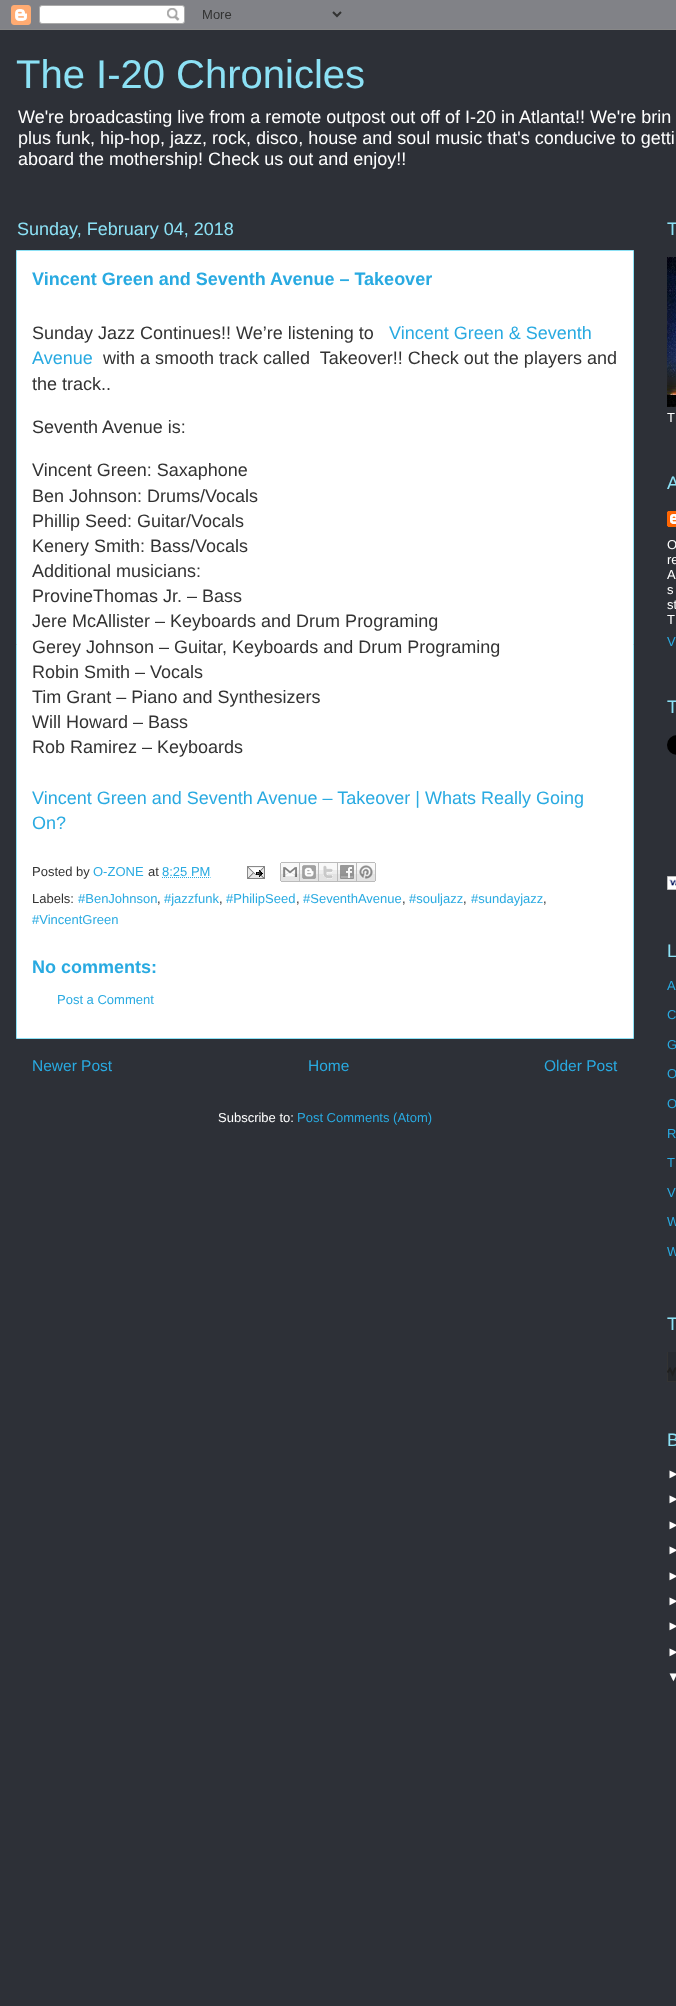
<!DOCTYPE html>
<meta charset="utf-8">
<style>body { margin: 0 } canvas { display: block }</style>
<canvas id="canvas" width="676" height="2006"></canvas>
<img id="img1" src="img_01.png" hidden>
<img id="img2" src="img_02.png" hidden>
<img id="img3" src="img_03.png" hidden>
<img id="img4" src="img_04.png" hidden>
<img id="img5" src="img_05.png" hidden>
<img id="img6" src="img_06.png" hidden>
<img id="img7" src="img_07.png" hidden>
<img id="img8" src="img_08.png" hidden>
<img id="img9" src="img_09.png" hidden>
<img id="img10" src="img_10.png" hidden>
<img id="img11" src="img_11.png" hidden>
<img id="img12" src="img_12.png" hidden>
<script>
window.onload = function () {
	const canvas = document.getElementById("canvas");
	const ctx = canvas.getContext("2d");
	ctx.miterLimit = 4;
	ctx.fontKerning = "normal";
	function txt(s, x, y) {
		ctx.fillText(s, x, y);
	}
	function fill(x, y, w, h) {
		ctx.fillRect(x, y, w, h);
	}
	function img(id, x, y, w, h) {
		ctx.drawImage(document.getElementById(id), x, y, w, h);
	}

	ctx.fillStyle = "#2D3037";
	fill(0, 0, 676, 2006);
	img("img1", 0, 0, 676, 30);
	ctx.fillStyle = "#FFFFFF";
	ctx.beginPath();
	ctx.rect(16.5, 250.5, 617, 788);
	ctx.fill();
	ctx.strokeStyle = "#8CE1F5";
	ctx.stroke();
	ctx.beginPath();
	ctx.moveTo(162, 877.5);
	ctx.lineTo(210.5, 877.5);
	ctx.strokeStyle = "#29AAE1";
	ctx.setLineDash([1, 1]);
	ctx.stroke();
	img("img2", 247, 866, 18, 13);
	img("img3", 280, 862, 20, 20);
	img("img4", 300, 862, 19, 20);
	img("img5", 319, 862, 19, 20);
	img("img6", 338, 862, 19, 20);
	img("img7", 357, 862, 19, 20);
	img("img8", 667, 257, 9, 150);
	img("img9", 667, 511, 9, 16);
	img("img10", 667, 735, 9, 20);
	img("img11", 667, 876, 9, 14);
	img("img12", 667, 1352, 9, 30);
	ctx.font = "40px Liberation Sans";
	ctx.fillStyle = "#8CE1F5";
	txt("The I-20 Chronicles", 16, 88);
	ctx.font = "18px Liberation Sans";
	ctx.fillStyle = "#FFFFFF";
	txt("We're broadcasting live from a remote outpost out off of I-20 in Atlanta!! We're brin", 18, 123);
	txt("plus funk, hip-hop, jazz, rock, disco, house and soul music that's conducive to getti", 18, 144);
	txt("aboard the mothership! Check us out and enjoy!!", 18, 165);
	ctx.fillStyle = "#8CE1F5";
	txt("Sunday, February 04, 2018", 17, 235);
	ctx.font = "bold 18px Liberation Sans";
	ctx.fillStyle = "#29AAE1";
	txt("Vincent Green and Seventh Avenue – Takeover", 32, 285);
	ctx.font = "18px Liberation Sans";
	ctx.fillStyle = "#333333";
	txt("Sunday Jazz Continues!! We’re listening to", 32, 339);
	ctx.fillStyle = "#29AAE1";
	txt("Vincent Green & Seventh", 389, 339);
	txt("Avenue", 32, 364);
	ctx.fillStyle = "#333333";
	txt(" with a smooth track called  Takeover!! Check out the players and", 98, 364);
	txt("the track..", 32, 390);
	txt("Seventh Avenue is:", 32, 433);
	txt("Vincent Green: Saxaphone", 32, 476);
	txt("Ben Johnson: Drums/Vocals", 32, 502);
	txt("Phillip Seed: Guitar/Vocals", 32, 527);
	txt("Kenery Smith: Bass/Vocals", 32, 552);
	txt("Additional musicians:", 32, 577);
	txt("ProvineThomas Jr. – Bass", 32, 602);
	txt("Jere McAllister – Keyboards and Drum Programing", 32, 627);
	txt("Gerey Johnson – Guitar, Keyboards and Drum Programing", 32, 653);
	txt("Robin Smith – Vocals", 32, 678);
	txt("Tim Grant – Piano and Synthesizers", 32, 703);
	txt("Will Howard – Bass", 32, 728);
	txt("Rob Ramirez – Keyboards", 32, 753);
	ctx.fillStyle = "#29AAE1";
	txt("Vincent Green and Seventh Avenue – Takeover | Whats Really Going", 32, 804);
	txt("On?", 32, 829);
	ctx.font = "13px Liberation Sans";
	ctx.fillStyle = "#333333";
	txt("Posted by", 32, 876);
	ctx.fillStyle = "#29AAE1";
	txt("O-ZONE", 93, 876);
	ctx.fillStyle = "#333333";
	txt("at", 148, 876);
	ctx.fillStyle = "#29AAE1";
	txt("8:25 PM", 162, 876);
	ctx.fillStyle = "#333333";
	txt("Labels:", 32, 903);
	ctx.fillStyle = "#29AAE1";
	txt("#BenJohnson", 78, 903);
	ctx.fillStyle = "#333333";
	txt(",", 157, 903);
	ctx.fillStyle = "#29AAE1";
	txt("#jazzfunk", 164, 903);
	ctx.fillStyle = "#333333";
	txt(",", 219, 903);
	ctx.fillStyle = "#29AAE1";
	txt("#PhilipSeed", 226, 903);
	ctx.fillStyle = "#333333";
	txt(",", 296, 903);
	ctx.fillStyle = "#29AAE1";
	txt("#SeventhAvenue", 303, 903);
	ctx.fillStyle = "#333333";
	txt(",", 402, 903);
	ctx.fillStyle = "#29AAE1";
	txt("#souljazz", 409, 903);
	ctx.fillStyle = "#333333";
	txt(",", 463, 903);
	ctx.fillStyle = "#29AAE1";
	txt("#sundayjazz", 471, 903);
	ctx.fillStyle = "#333333";
	txt(",", 543, 903);
	ctx.fillStyle = "#29AAE1";
	txt("#VincentGreen", 32, 924);
	ctx.font = "bold 18px Liberation Sans";
	txt("No comments:", 32, 973);
	ctx.font = "13px Liberation Sans";
	txt("Post a Comment", 57, 1004);
	ctx.font = "15.5px Liberation Sans";
	txt("Newer Post", 32, 1071);
	txt("Home", 308, 1071);
	txt("Older Post", 544, 1071);
	ctx.font = "13px Liberation Sans";
	ctx.fillStyle = "#FFFFFF";
	txt("Subscribe to:", 218, 1122);
	ctx.fillStyle = "#29AAE1";
	txt("Post Comments (Atom)", 297, 1122);
	ctx.font = "18px Liberation Sans";
	ctx.fillStyle = "#8CE1F5";
	txt("T", 667, 235);
	ctx.font = "13px Liberation Sans";
	ctx.fillStyle = "#FFFFFF";
	txt("T", 667, 422);
	ctx.font = "18px Liberation Sans";
	ctx.fillStyle = "#8CE1F5";
	txt("A", 667, 489);
	ctx.font = "13px Liberation Sans";
	ctx.fillStyle = "#FFFFFF";
	txt("O", 667, 549);
	txt("re", 667, 564);
	txt("A", 667, 579);
	txt("s", 667, 594);
	txt("st", 667, 609);
	txt("T", 667, 624);
	ctx.fillStyle = "#29AAE1";
	txt("V", 667, 646);
	ctx.font = "18px Liberation Sans";
	ctx.fillStyle = "#8CE1F5";
	txt("T", 667, 713);
	txt("L", 667, 957);
	ctx.font = "13px Liberation Sans";
	ctx.fillStyle = "#29AAE1";
	txt("A", 667, 990);
	txt("C", 667, 1019);
	txt("G", 667, 1049);
	txt("O", 667, 1078);
	txt("O", 667, 1108);
	txt("R", 667, 1138);
	txt("T", 667, 1167);
	txt("V", 667, 1197);
	txt("W", 667, 1226);
	txt("W", 667, 1256);
	ctx.font = "18px Liberation Sans";
	ctx.fillStyle = "#8CE1F5";
	txt("T", 667, 1330);
	txt("B", 667, 1446);
	ctx.font = "13px Liberation Sans";
	ctx.fillStyle = "#FFFFFF";
	txt("►", 667, 1478);
	txt("►", 667, 1503);
	txt("►", 667, 1529);
	txt("►", 667, 1554);
	txt("►", 667, 1580);
	txt("►", 667, 1605);
	txt("►", 667, 1630);
	txt("►", 667, 1656);
	txt("▼", 667, 1681);
};
</script>
